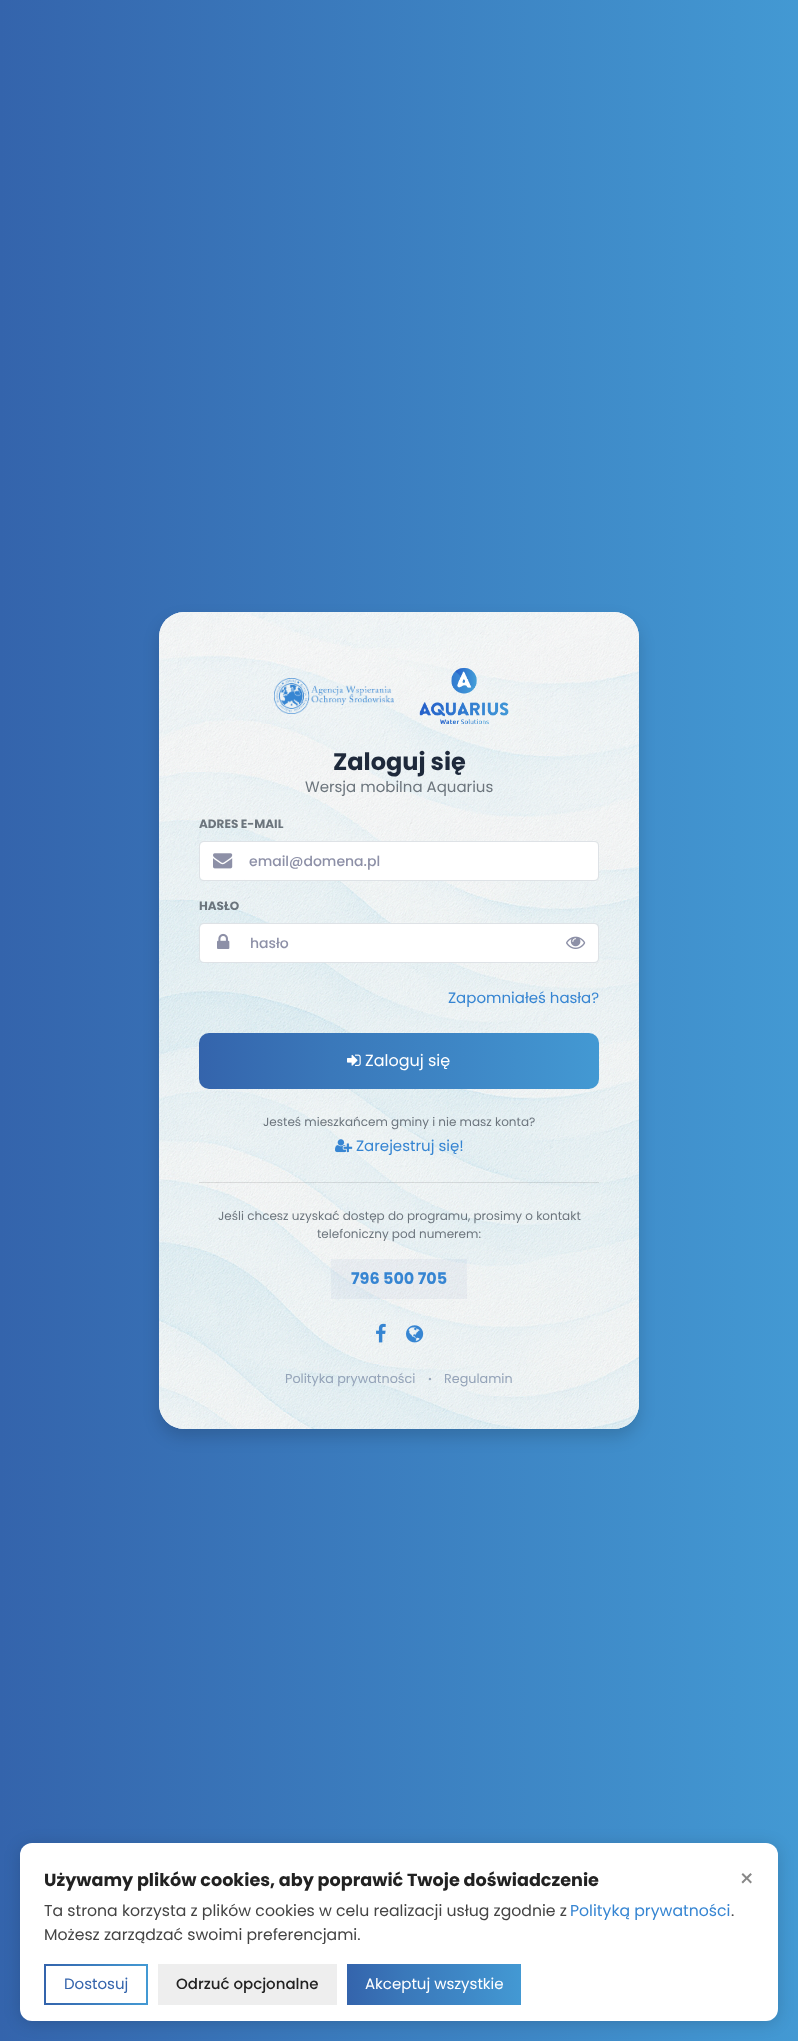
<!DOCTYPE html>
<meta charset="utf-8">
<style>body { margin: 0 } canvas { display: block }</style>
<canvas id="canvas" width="798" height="2041"></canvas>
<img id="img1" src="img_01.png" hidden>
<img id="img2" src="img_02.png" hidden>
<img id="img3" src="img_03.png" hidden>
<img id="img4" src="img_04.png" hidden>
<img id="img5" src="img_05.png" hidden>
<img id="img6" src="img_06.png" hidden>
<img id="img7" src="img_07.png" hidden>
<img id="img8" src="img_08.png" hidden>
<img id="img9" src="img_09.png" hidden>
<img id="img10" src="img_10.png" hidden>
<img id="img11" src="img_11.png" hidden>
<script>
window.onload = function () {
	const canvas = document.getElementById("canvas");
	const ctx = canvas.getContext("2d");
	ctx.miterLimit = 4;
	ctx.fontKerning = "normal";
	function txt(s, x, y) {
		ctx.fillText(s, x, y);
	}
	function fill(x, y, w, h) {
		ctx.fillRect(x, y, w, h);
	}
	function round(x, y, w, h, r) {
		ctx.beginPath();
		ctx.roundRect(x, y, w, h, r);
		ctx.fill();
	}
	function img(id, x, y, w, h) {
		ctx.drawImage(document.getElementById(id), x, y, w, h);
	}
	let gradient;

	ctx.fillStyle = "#FFFFFF";
	fill(0, 0, 798, 2041);
	gradient = ctx.createLinearGradient(0, 1021, 798, 1021);
	gradient.addColorStop(0, "#3464AC");
	gradient.addColorStop(1, "#4399D3");
	ctx.fillStyle = gradient;
	fill(0, 0, 798, 2041);
	ctx.fillStyle = "rgba(0, 0, 0, 0.15)";
	ctx.filter = "blur(8px)";
	ctx.beginPath();
	ctx.roundRect(159, 620, 480, 817, 25);
	ctx.fill();
	ctx.filter = "none";
	ctx.fillStyle = "rgba(255, 255, 255, 0.96)";
	round(159, 612, 480, 817, 25);
	img("img1", 159, 612, 480, 817);
	img("img2", 274, 678, 120, 36);
	img("img3", 419, 668, 90, 56);
	ctx.beginPath();
	ctx.roundRect(199.5, 841.5, 399, 39, 3.5);
	ctx.strokeStyle = "#DEE2E6";
	ctx.stroke();
	ctx.fillStyle = "#FFFFFF";
	ctx.beginPath();
	ctx.roundRect(200.5, 842.5, 44, 37, [3.5, 0, 0, 3.5]);
	ctx.fill();
	ctx.strokeStyle = "#FFFFFF";
	ctx.stroke();
	img("img4", 213, 853, 20, 16);
	ctx.beginPath();
	ctx.roundRect(244.5, 842.5, 353, 37, [0, 3.5, 3.5, 0]);
	ctx.fill();
	ctx.stroke();
	ctx.beginPath();
	ctx.roundRect(199.5, 923.5, 399, 39, 3.5);
	ctx.strokeStyle = "#DEE2E6";
	ctx.stroke();
	ctx.beginPath();
	ctx.roundRect(200.5, 924.5, 45, 37, [3.5, 0, 0, 3.5]);
	ctx.fill();
	ctx.strokeStyle = "#FFFFFF";
	ctx.stroke();
	img("img5", 217, 933, 13, 16);
	ctx.beginPath();
	ctx.roundRect(553.5, 924.5, 44, 37, [0, 3.5, 3.5, 0]);
	ctx.fill();
	ctx.stroke();
	ctx.beginPath();
	ctx.rect(245.5, 924.5, 308, 37);
	ctx.fill();
	ctx.stroke();
	img("img6", 566, 936, 20, 13);
	gradient = ctx.createLinearGradient(199, 1061, 599, 1061);
	gradient.addColorStop(0, "#3464AC");
	gradient.addColorStop(0.33, "#3A78BA");
	gradient.addColorStop(0.66, "#3E87C6");
	gradient.addColorStop(1, "#4399D3");
	ctx.fillStyle = gradient;
	round(199, 1033, 400, 56, 10);
	img("img7", 347, 1054, 14, 12);
	img("img8", 335, 1139, 18, 14);
	ctx.fillStyle = "rgba(0, 0, 0, 0.1)";
	fill(199, 1182, 400, 1);
	ctx.fillStyle = "rgba(52, 100, 172, 0.05)";
	fill(331, 1259, 136, 40);
	img("img9", 376, 1323, 10, 20);
	img("img10", 406, 1325, 18, 18);
	ctx.fillStyle = "rgba(0, 0, 0, 0.15)";
	ctx.filter = "blur(8px)";
	ctx.beginPath();
	ctx.roundRect(20, 1845, 758, 178, 12);
	ctx.fill();
	ctx.filter = "none";
	ctx.fillStyle = "#FFFFFF";
	round(20, 1843, 758, 178, 12);
	img("img11", 44, 1964, 104, 41);
	ctx.fillStyle = "#EEEEEE";
	fill(158, 1964, 179, 41);
	gradient = ctx.createLinearGradient(347, 1985, 521, 1985);
	gradient.addColorStop(0, "#3464AC");
	gradient.addColorStop(0.33, "#3A78BA");
	gradient.addColorStop(0.66, "#3E87C6");
	gradient.addColorStop(1, "#4399D3");
	ctx.fillStyle = gradient;
	fill(347, 1964, 174, 41);
	ctx.font = "bold 24px Poppins";
	ctx.fillStyle = "#1E293B";
	txt("Zaloguj się", 333, 770);
	ctx.font = "15px Poppins";
	ctx.fillStyle = "#6C757D";
	txt("Wersja mobilna Aquarius", 305, 792);
	ctx.font = "bold 12px Poppins";
	txt("ADRES E-MAIL", 199, 828);
	ctx.font = "500 14px Poppins";
	ctx.fillStyle = "#8D90A7";
	txt("email@domena.pl", 249, 866);
	ctx.font = "bold 12px Poppins";
	ctx.fillStyle = "#6C757D";
	txt("HASŁO", 199, 910);
	ctx.font = "500 14px Poppins";
	ctx.fillStyle = "#8D90A7";
	txt("hasło", 250, 948);
	ctx.font = "15px Poppins";
	ctx.fillStyle = "#3685D2";
	txt("Zapomniałeś hasła?", 448, 1003);
	ctx.font = "16px Poppins";
	ctx.fillStyle = "#FFFFFF";
	txt("Zaloguj się", 365, 1066);
	ctx.font = "12px Poppins";
	ctx.fillStyle = "#6C757D";
	txt("Jesteś mieszkańcem gminy i nie masz konta?", 263, 1126);
	ctx.font = "15px Poppins";
	ctx.fillStyle = "#3685D2";
	txt("Zarejestruj się!", 356, 1151);
	ctx.font = "12px Poppins";
	ctx.fillStyle = "#6C757D";
	txt("Jeśli chcesz uzyskać dostęp do programu, prosimy o kontakt", 218, 1220);
	txt("telefoniczny pod numerem:", 317, 1238);
	ctx.font = "bold 16px Poppins";
	ctx.fillStyle = "#3685D2";
	txt("796 500 705", 351, 1284);
	ctx.font = "12.75px Poppins";
	ctx.fillStyle = "#94A3B8";
	txt("Polityka prywatności", 285, 1383);
	ctx.font = "bold 12.75px Poppins";
	txt("·", 428, 1383);
	ctx.font = "12.75px Poppins";
	txt("Regulamin", 444, 1383);
	ctx.font = "bold 17.6px Poppins";
	ctx.fillStyle = "#222222";
	txt("Używamy plików cookies, aby poprawić Twoje doświadczenie", 44, 1886);
	ctx.font = "15.7px Poppins";
	ctx.fillStyle = "#444444";
	txt("Ta strona korzysta z plików cookies w celu realizacji usług zgodnie z", 44, 1916);
	ctx.fillStyle = "#3685D2";
	txt("Polityką prywatności", 570, 1916);
	ctx.fillStyle = "#444444";
	txt(".", 731, 1916);
	txt("Możesz zarządzać swoimi preferencjami.", 44, 1940);
	ctx.font = "24px Poppins";
	ctx.fillStyle = "#888888";
	txt("×", 739, 1887);
	ctx.font = "15px Poppins";
	ctx.fillStyle = "#3464AC";
	txt("Dostosuj", 64, 1989);
	ctx.font = "500 15px Poppins";
	ctx.fillStyle = "#222222";
	txt("Odrzuć opcjonalne", 176, 1989);
	ctx.font = "15px Poppins";
	ctx.fillStyle = "#FFFFFF";
	txt("Akceptuj wszystkie", 365, 1989);
};
</script>
